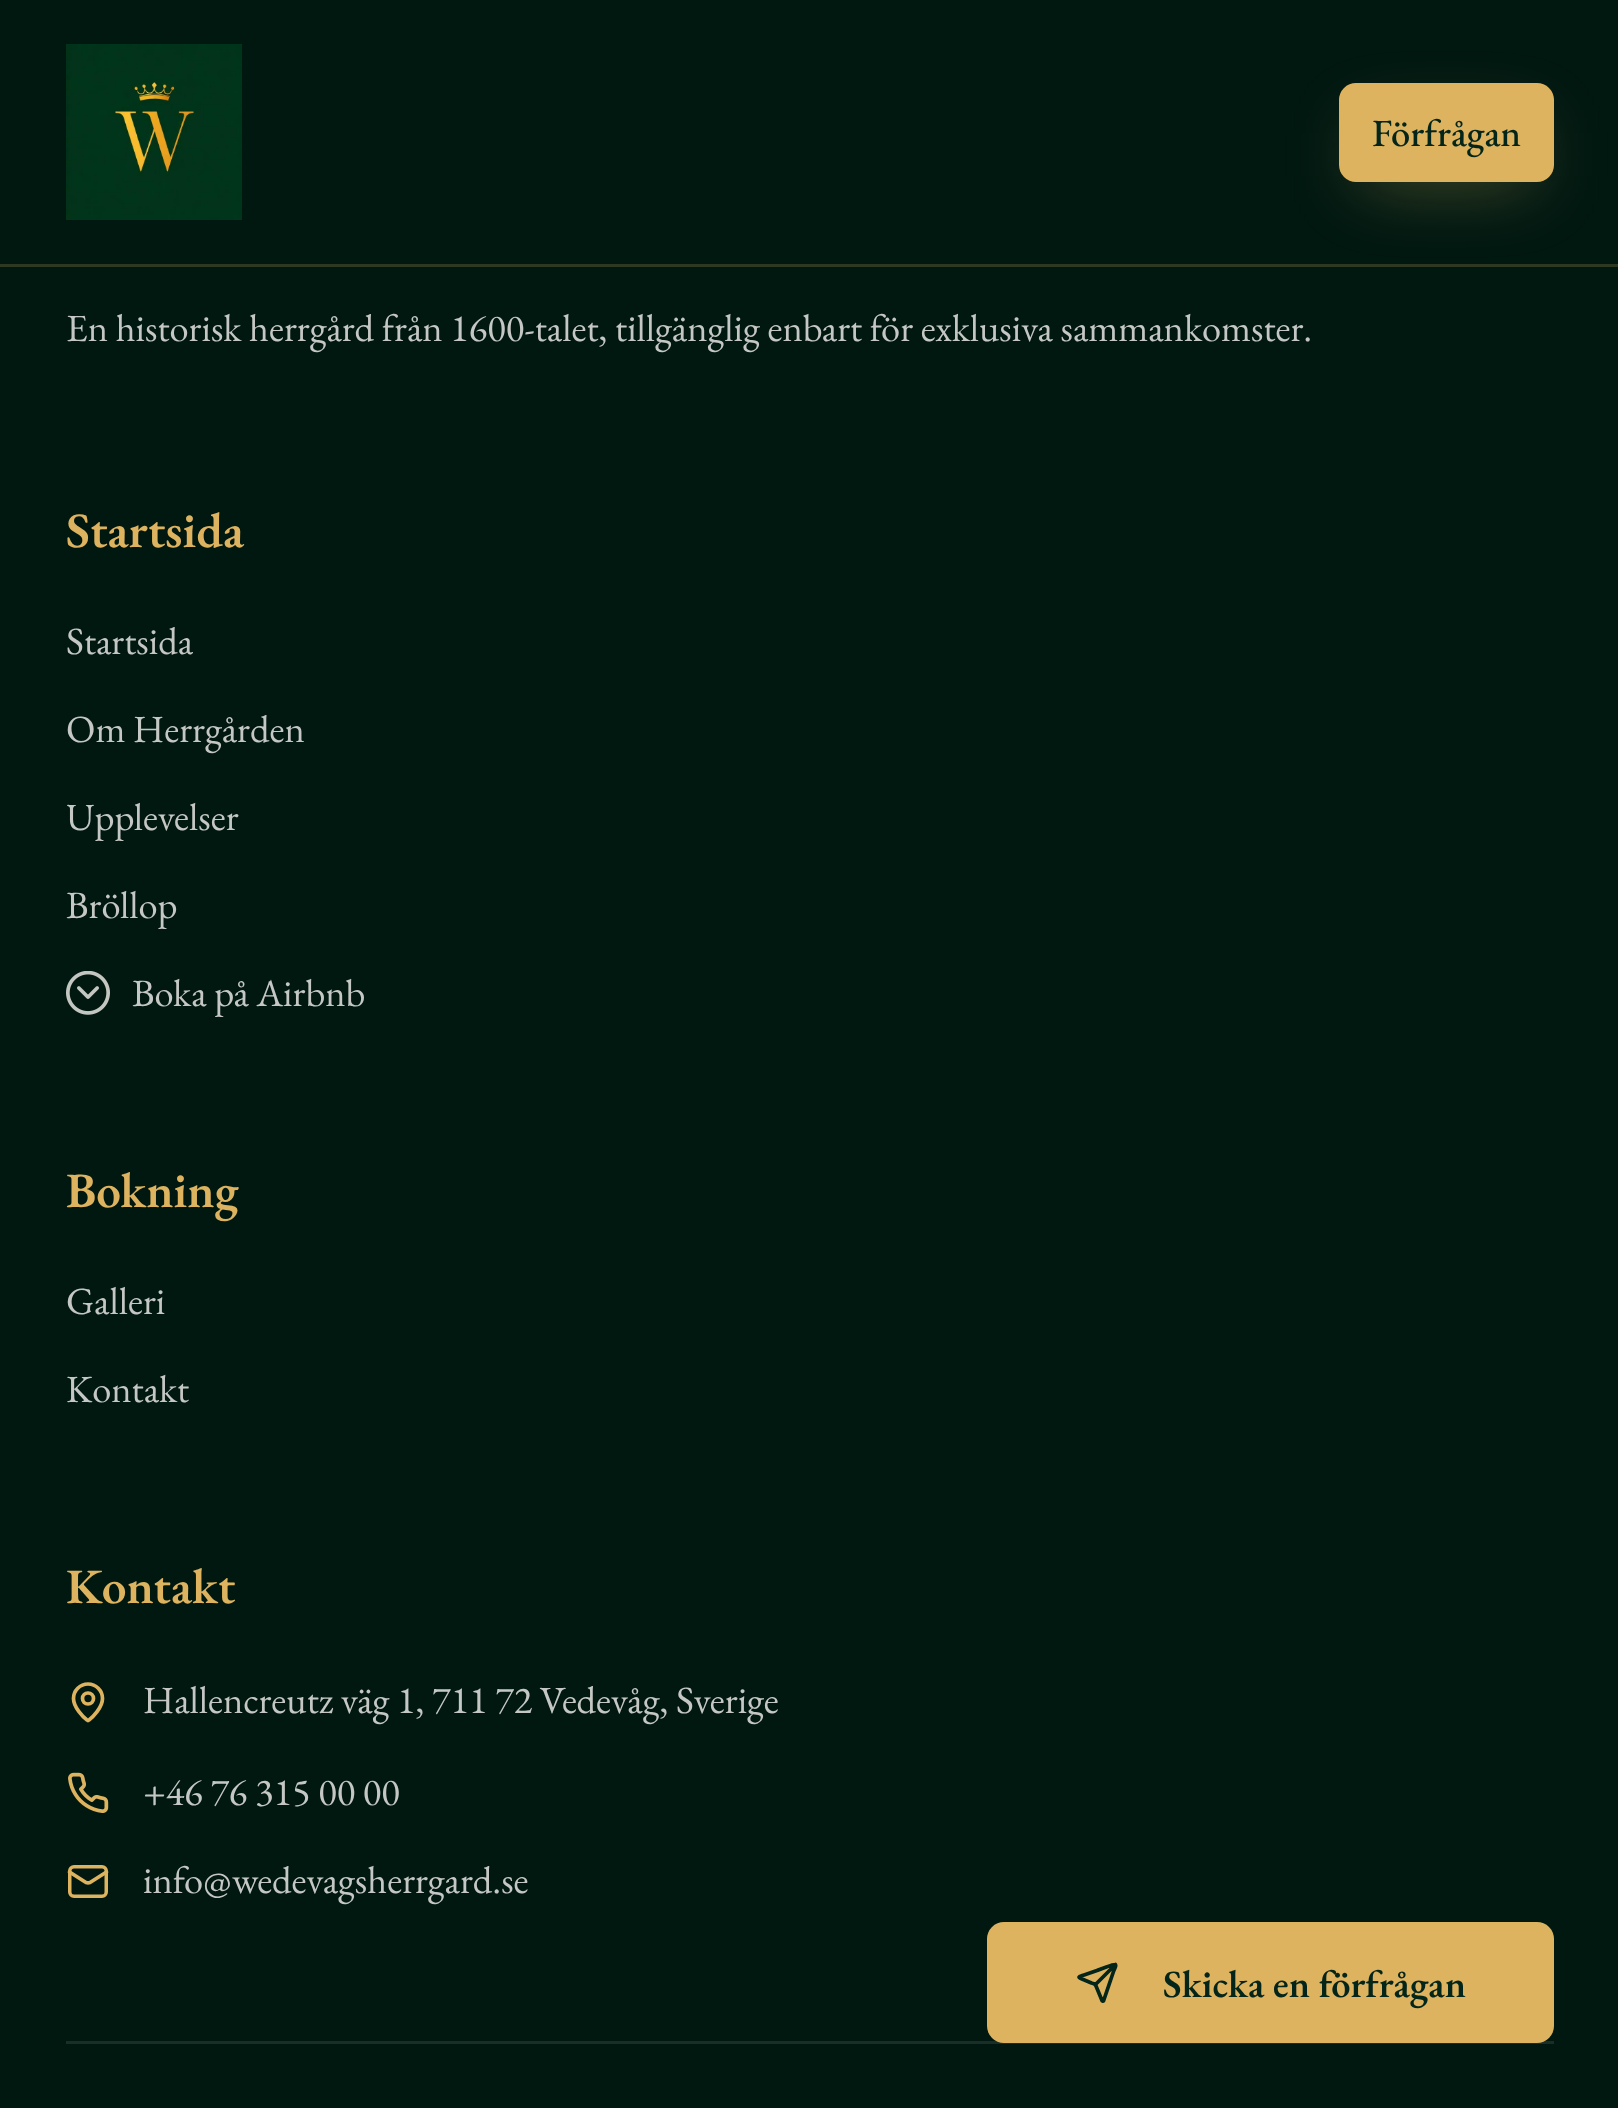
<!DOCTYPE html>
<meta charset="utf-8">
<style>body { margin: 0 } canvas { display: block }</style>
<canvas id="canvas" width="1618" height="2108"></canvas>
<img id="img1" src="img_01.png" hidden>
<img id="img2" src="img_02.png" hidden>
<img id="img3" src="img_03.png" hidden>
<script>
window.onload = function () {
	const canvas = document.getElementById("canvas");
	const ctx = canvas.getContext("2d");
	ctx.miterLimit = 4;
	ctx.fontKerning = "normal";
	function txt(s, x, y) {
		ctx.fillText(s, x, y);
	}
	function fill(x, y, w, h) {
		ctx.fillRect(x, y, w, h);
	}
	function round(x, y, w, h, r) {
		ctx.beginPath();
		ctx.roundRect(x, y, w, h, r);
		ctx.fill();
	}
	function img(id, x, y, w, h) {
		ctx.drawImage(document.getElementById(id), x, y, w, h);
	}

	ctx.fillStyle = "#011811";
	fill(0, 0, 1618, 2108);
	ctx.fillStyle = "#2D3721";
	fill(0, 264, 1618, 3);
	img("img1", 66, 44, 176, 176);
	ctx.fillStyle = "rgba(221, 179, 95, 0.35)";
	ctx.filter = "blur(34.5px)";
	ctx.beginPath();
	ctx.rect(1361, 127, 171, 55);
	ctx.fill();
	ctx.filter = "none";
	ctx.fillStyle = "#DDB35F";
	round(1339, 83, 215, 99, 17);
	img("img2", 66, 971, 44, 44);
	ctx.beginPath();
	ctx.moveTo(102.5, 1698.5);
	ctx.bezierCurveTo(102.5, 1707.5, 92.5, 1717.5, 89, 1720);
	ctx.bezierCurveTo(88.5, 1720.5, 87.5, 1720.5, 87, 1720);
	ctx.bezierCurveTo(83.5, 1717.5, 73.5, 1707.5, 73.5, 1698.5);
	ctx.bezierCurveTo(73.5, 1690.5, 80, 1684, 88, 1684);
	ctx.bezierCurveTo(96, 1684, 102.5, 1690.5, 102.5, 1698.5);
	ctx.strokeStyle = "#DDB35F";
	ctx.lineWidth = 3.7;
	ctx.lineCap = "round";
	ctx.lineJoin = "round";
	ctx.stroke();
	ctx.beginPath();
	ctx.arc(88, 1698.5, 5.5, 0, Math.PI * 2);
	ctx.stroke();
	img("img3", 68, 1772, 41, 41);
	ctx.beginPath();
	ctx.roundRect(69.75, 1866.75, 36.5, 29.5, 4.25);
	ctx.lineWidth = 3.5;
	ctx.lineJoin = "miter";
	ctx.stroke();
	ctx.beginPath();
	ctx.moveTo(106.5, 1872);
	ctx.lineTo(90, 1882.5);
	ctx.bezierCurveTo(88.5, 1883, 87.5, 1883, 86, 1882.5);
	ctx.lineTo(69.5, 1872);
	ctx.lineWidth = 3.7;
	ctx.lineJoin = "round";
	ctx.stroke();
	ctx.fillStyle = "#192E27";
	fill(66, 2041, 1488, 3);
	ctx.fillStyle = "#DDB35F";
	round(987, 1922, 567, 121, 17);
	ctx.beginPath();
	ctx.moveTo(1102, 2000.5);
	ctx.bezierCurveTo(1102, 2001, 1103, 2001.5, 1103.5, 2001);
	ctx.lineTo(1113.5, 1971.5);
	ctx.bezierCurveTo(1114, 1970, 1117, 1965, 1115, 1964.5);
	ctx.bezierCurveTo(1114, 1964, 1099, 1969.5, 1097, 1970.5);
	ctx.lineTo(1085.5, 1974.5);
	ctx.bezierCurveTo(1080, 1976.5, 1076, 1976.5, 1082, 1979);
	ctx.lineTo(1091.5, 1983);
	ctx.bezierCurveTo(1093.5, 1983.5, 1095.5, 1984, 1096, 1986);
	ctx.closePath();
	ctx.moveTo(1115.5, 1964.5);
	ctx.lineTo(1095.5, 1984.5);
	ctx.strokeStyle = "#04251A";
	ctx.stroke();
	ctx.font = "500 38.5px EB Garamond";
	ctx.fillStyle = "#04251A";
	txt("Förfrågan", 1372, 146);
	ctx.font = "38.5px EB Garamond";
	ctx.fillStyle = "#C4C7C3";
	txt("En historisk herrgård från 1600-talet, tillgänglig enbart för exklusiva sammankomster.", 66, 341);
	ctx.font = "600 49.5px EB Garamond";
	ctx.fillStyle = "#DDB35F";
	txt("Startsida", 66, 547);
	ctx.font = "38.5px EB Garamond";
	ctx.fillStyle = "#C4C7C3";
	txt("Startsida", 66, 654);
	txt("Om Herrgården", 66, 742);
	txt("Upplevelser", 66, 830);
	txt("Bröllop", 66, 918);
	txt("Boka på Airbnb", 132, 1006);
	ctx.font = "600 49.5px EB Garamond";
	ctx.fillStyle = "#DDB35F";
	txt("Bokning", 66, 1207);
	ctx.font = "38.5px EB Garamond";
	ctx.fillStyle = "#C4C7C3";
	txt("Galleri", 66, 1314);
	txt("Kontakt", 66, 1402);
	ctx.font = "600 49.5px EB Garamond";
	ctx.fillStyle = "#DDB35F";
	txt("Kontakt", 66, 1603);
	ctx.font = "38.5px EB Garamond";
	ctx.fillStyle = "#C4C7C3";
	txt("Hallencreutz väg 1, 711 72 Vedevåg, Sverige", 143, 1713);
	txt("+46 76 315 00 00", 143, 1805);
	txt("info@wedevagsherrgard.se", 143, 1893);
	ctx.font = "600 38.5px EB Garamond";
	ctx.fillStyle = "#04251A";
	txt("Skicka en förfrågan", 1163, 1997);
};
</script>
